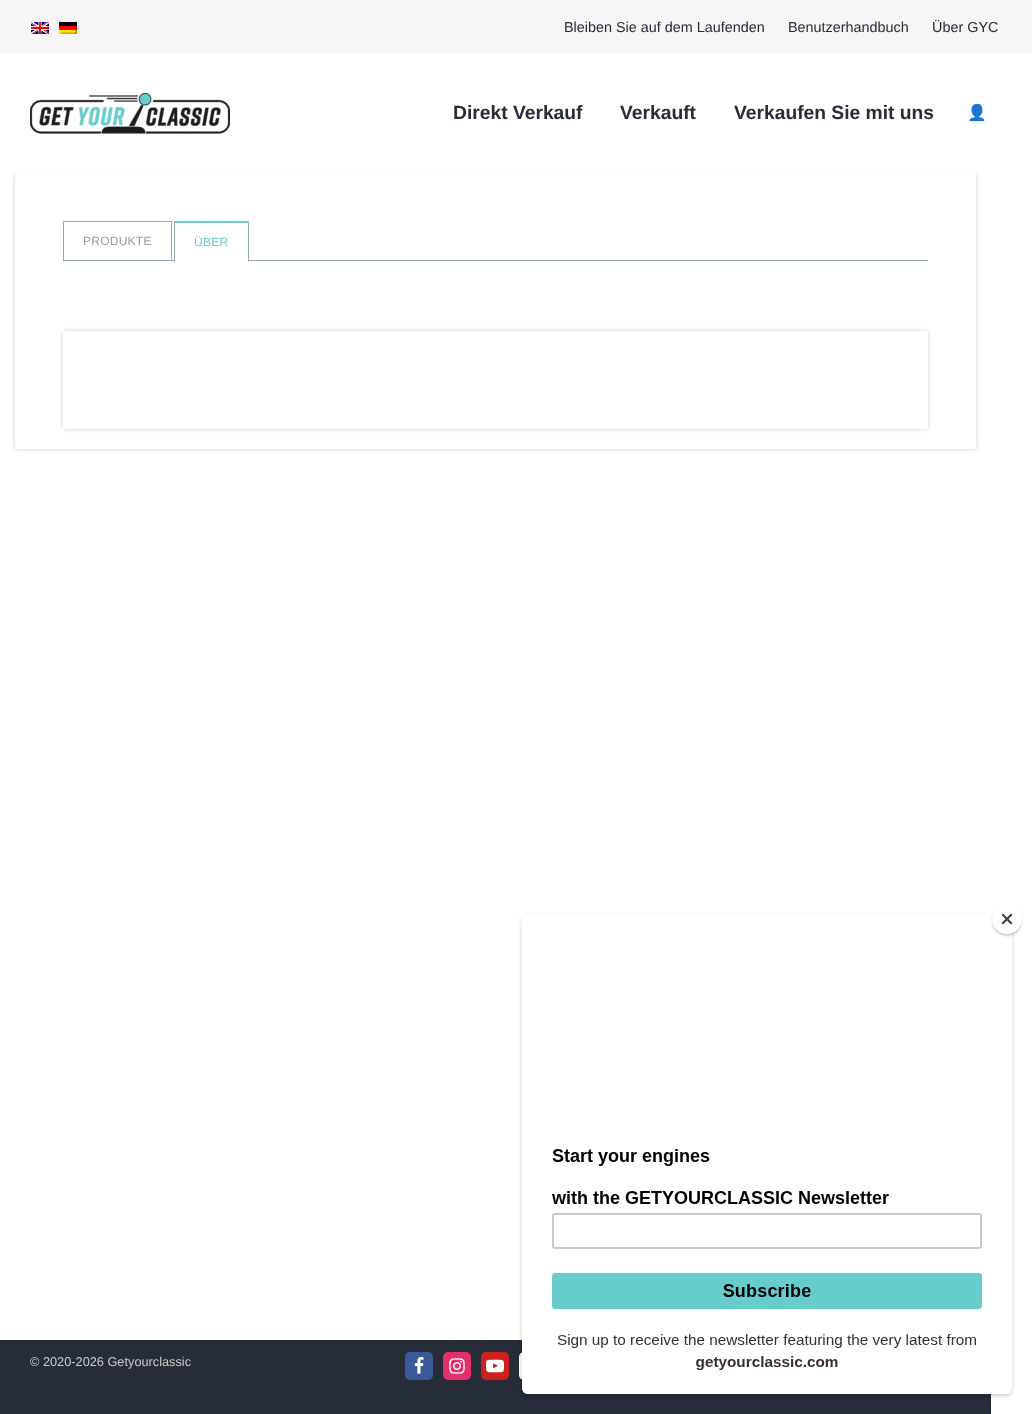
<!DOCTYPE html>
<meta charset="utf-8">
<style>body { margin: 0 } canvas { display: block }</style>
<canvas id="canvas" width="1032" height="1414"></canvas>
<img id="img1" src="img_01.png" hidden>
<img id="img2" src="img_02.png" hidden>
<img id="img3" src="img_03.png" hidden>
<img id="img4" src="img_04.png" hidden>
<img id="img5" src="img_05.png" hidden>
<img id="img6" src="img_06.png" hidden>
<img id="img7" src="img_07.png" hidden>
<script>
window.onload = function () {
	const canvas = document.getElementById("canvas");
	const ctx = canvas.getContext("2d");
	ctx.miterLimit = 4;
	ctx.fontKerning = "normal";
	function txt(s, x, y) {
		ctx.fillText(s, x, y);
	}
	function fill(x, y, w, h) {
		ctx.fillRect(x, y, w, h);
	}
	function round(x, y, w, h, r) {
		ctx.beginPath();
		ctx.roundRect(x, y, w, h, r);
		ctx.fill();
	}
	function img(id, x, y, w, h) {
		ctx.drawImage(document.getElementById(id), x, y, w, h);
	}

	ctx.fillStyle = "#FFFFFF";
	fill(0, 0, 1032, 1414);
	ctx.fillStyle = "#F6F6F6";
	fill(0, 0, 1032, 53);
	img("img1", 31, 22, 18, 12);
	img("img2", 59, 22, 18, 12);
	ctx.save();
	ctx.beginPath();
	ctx.moveTo(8, 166);
	ctx.lineTo(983, 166);
	ctx.lineTo(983, 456);
	ctx.lineTo(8, 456);
	ctx.closePath();
	ctx.moveTo(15, 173);
	ctx.lineTo(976, 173);
	ctx.lineTo(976, 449);
	ctx.lineTo(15, 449);
	ctx.closePath();
	ctx.clip("evenodd");
	ctx.fillStyle = "#CCCCCC";
	ctx.filter = "blur(2px)";
	ctx.beginPath();
	ctx.rect(15, 173, 961, 276);
	ctx.fill();
	ctx.filter = "none";
	ctx.restore();
	ctx.fillStyle = "#FFFFFF";
	fill(13, 170, 965, 3);
	img("img3", 30, 93, 200, 41);
	ctx.fillStyle = "#93A8B3";
	fill(63, 260, 865, 1);
	fill(63, 221, 109, 1);
	ctx.beginPath();
	ctx.moveTo(172, 221);
	ctx.lineTo(172, 261);
	ctx.lineTo(171, 260);
	ctx.lineTo(171, 222);
	ctx.closePath();
	ctx.fill();
	ctx.beginPath();
	ctx.moveTo(63, 261);
	ctx.lineTo(63, 221);
	ctx.lineTo(64, 222);
	ctx.lineTo(64, 260);
	ctx.closePath();
	ctx.fill();
	ctx.fillStyle = "#FFFFFF";
	fill(174, 260, 75, 1);
	ctx.fillStyle = "#66CCCC";
	ctx.beginPath();
	ctx.moveTo(174, 221);
	ctx.lineTo(249, 221);
	ctx.lineTo(248, 223);
	ctx.lineTo(175, 223);
	ctx.closePath();
	ctx.fill();
	ctx.fillStyle = "#93A8B3";
	ctx.beginPath();
	ctx.moveTo(249, 221);
	ctx.lineTo(249, 262);
	ctx.lineTo(248, 261);
	ctx.lineTo(248, 223);
	ctx.closePath();
	ctx.fill();
	ctx.beginPath();
	ctx.moveTo(174, 262);
	ctx.lineTo(174, 221);
	ctx.lineTo(175, 223);
	ctx.lineTo(175, 261);
	ctx.closePath();
	ctx.fill();
	ctx.save();
	ctx.beginPath();
	ctx.moveTo(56, 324);
	ctx.lineTo(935, 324);
	ctx.lineTo(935, 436);
	ctx.lineTo(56, 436);
	ctx.closePath();
	ctx.moveTo(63, 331);
	ctx.lineTo(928, 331);
	ctx.lineTo(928, 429);
	ctx.lineTo(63, 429);
	ctx.closePath();
	ctx.clip("evenodd");
	ctx.fillStyle = "#CCCCCC";
	ctx.filter = "blur(2px)";
	ctx.beginPath();
	ctx.rect(63, 331, 865, 98);
	ctx.fill();
	ctx.filter = "none";
	ctx.restore();
	ctx.fillStyle = "#262C38";
	fill(0, 1340, 991, 74);
	ctx.fillStyle = "#3B5998";
	round(405, 1352, 28, 28, 5);
	img("img4", 414, 1357, 10, 17);
	ctx.fillStyle = "#E1306C";
	round(443, 1352, 28, 28, 5);
	img("img5", 449, 1358, 16, 16);
	ctx.fillStyle = "#CD201F";
	round(481, 1352, 28, 28, 5);
	img("img6", 486, 1359, 18, 14);
	ctx.fillStyle = "#FFFFFF";
	round(519, 1352, 28, 28, 5);
	ctx.fillStyle = "rgba(0, 0, 0, 0.2)";
	ctx.filter = "blur(2px)";
	ctx.beginPath();
	ctx.roundRect(522, 916, 490, 480, 6);
	ctx.fill();
	ctx.filter = "none";
	ctx.fillStyle = "#FFFFFF";
	round(522, 914, 490, 480, 6);
	ctx.fillStyle = "rgba(0, 0, 0, 0.2)";
	ctx.filter = "blur(1px)";
	ctx.beginPath();
	ctx.roundRect(992, 906, 30, 30, 15);
	ctx.fill();
	ctx.filter = "none";
	ctx.fillStyle = "#FFFFFF";
	ctx.beginPath();
	ctx.arc(1007, 919, 15, 0, Math.PI * 2);
	ctx.fill();
	ctx.fillStyle = "#414141";
	ctx.beginPath();
	ctx.moveTo(1011, 913.5);
	ctx.lineTo(1012.5, 915);
	ctx.lineTo(1003, 924.5);
	ctx.lineTo(1001.5, 923);
	ctx.closePath();
	ctx.fill();
	ctx.beginPath();
	ctx.moveTo(1001.5, 915);
	ctx.lineTo(1003, 913.5);
	ctx.lineTo(1012.5, 923);
	ctx.lineTo(1011, 924.5);
	ctx.closePath();
	ctx.fill();
	img("img7", 522, 1149, 487, 245);
	ctx.font = "14.4px Liberation Sans";
	ctx.fillStyle = "#262C38";
	txt("Bleiben Sie auf dem Laufenden", 564, 32);
	txt("Benutzerhandbuch", 788, 32);
	txt("Über GYC", 932, 32);
	ctx.font = "bold 19.25px Liberation Sans";
	txt("Direkt Verkauf", 453, 119);
	txt("Verkauft", 620, 119);
	txt("Verkaufen Sie mit uns", 734, 119);
	ctx.font = "bold 16px Noto Color Emoji";
	txt("👤", 967, 118);
	ctx.letterSpacing = "0.25px";
	ctx.font = "12px Liberation Sans";
	ctx.fillStyle = "#999999";
	txt("PRODUKTE", 83, 245);
	ctx.fillStyle = "#66CCCC";
	txt("ÜBER", 194, 246);
	ctx.letterSpacing = "0px";
	ctx.font = "12.75px Liberation Sans";
	ctx.fillStyle = "#CDCDCD";
	txt("© 2020-2026 Getyourclassic", 30, 1366);
};
</script>
